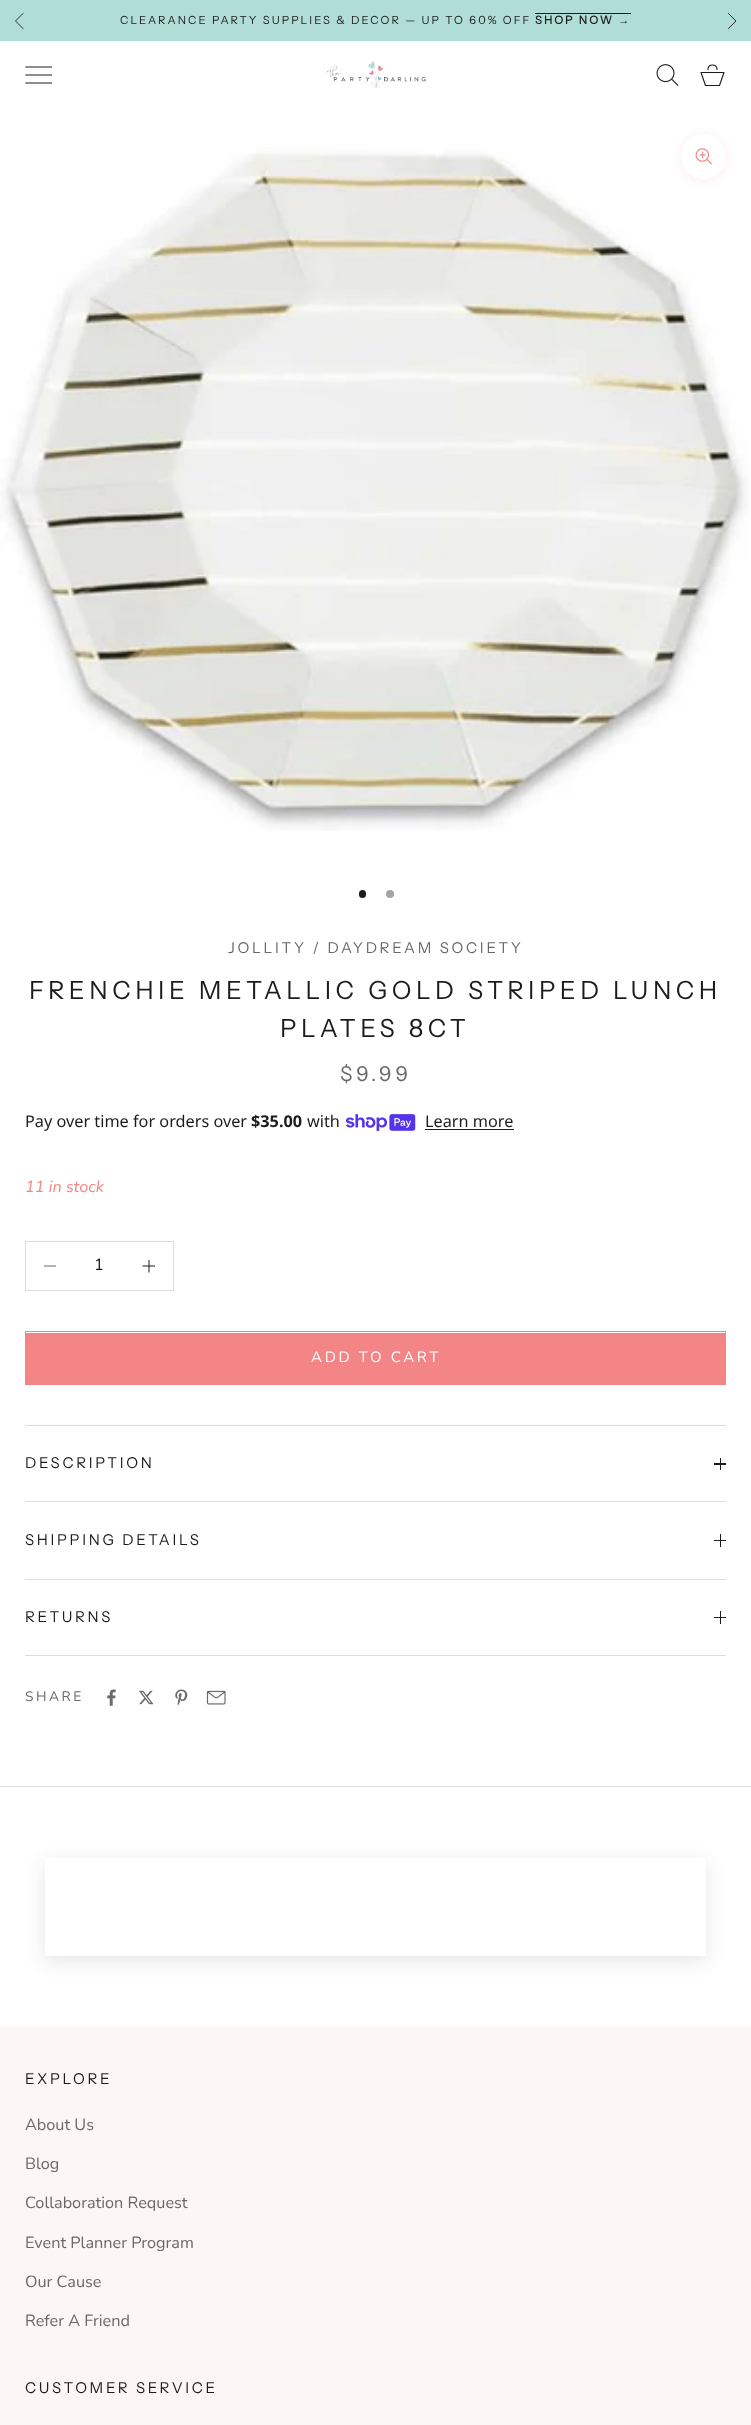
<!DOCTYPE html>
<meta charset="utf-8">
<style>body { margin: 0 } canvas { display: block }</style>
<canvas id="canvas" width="751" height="2425"></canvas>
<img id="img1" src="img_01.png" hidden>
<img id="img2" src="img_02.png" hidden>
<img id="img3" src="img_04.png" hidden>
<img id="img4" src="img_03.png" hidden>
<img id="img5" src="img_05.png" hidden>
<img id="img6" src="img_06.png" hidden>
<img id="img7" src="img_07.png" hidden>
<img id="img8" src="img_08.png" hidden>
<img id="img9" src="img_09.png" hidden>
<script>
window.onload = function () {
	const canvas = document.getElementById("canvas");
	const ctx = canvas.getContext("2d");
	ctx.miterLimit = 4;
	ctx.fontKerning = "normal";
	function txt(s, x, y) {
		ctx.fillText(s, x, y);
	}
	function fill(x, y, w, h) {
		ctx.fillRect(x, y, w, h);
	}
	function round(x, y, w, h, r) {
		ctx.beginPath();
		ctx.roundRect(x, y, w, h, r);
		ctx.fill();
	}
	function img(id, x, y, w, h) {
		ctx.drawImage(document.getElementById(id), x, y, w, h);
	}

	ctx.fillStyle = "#FFFFFF";
	fill(0, 0, 751, 2425);
	ctx.fillStyle = "#B0DED6";
	fill(0, 0, 751, 41);
	ctx.beginPath();
	ctx.moveTo(23, 13.5);
	ctx.lineTo(15.5, 21);
	ctx.lineTo(23, 28.5);
	ctx.strokeStyle = "#1C1C1C";
	ctx.lineWidth = 0.9;
	ctx.lineCap = "square";
	ctx.stroke();
	ctx.fillStyle = "#1C1C1C";
	fill(535, 13, 96, 1);
	ctx.beginPath();
	ctx.moveTo(728.5, 28.5);
	ctx.lineTo(736, 21);
	ctx.lineTo(728.5, 13.5);
	ctx.stroke();
	ctx.beginPath();
	ctx.moveTo(26, 83);
	ctx.lineTo(51.5, 83);
	ctx.moveTo(26, 75);
	ctx.lineTo(51.5, 75);
	ctx.moveTo(26, 67);
	ctx.lineTo(51.5, 67);
	ctx.lineWidth = 1.1;
	ctx.stroke();
	img("img1", 326, 61, 100, 27);
	img("img2", 656, 64, 23, 22);
	ctx.beginPath();
	ctx.moveTo(701, 72.5);
	ctx.lineTo(724, 72.5);
	ctx.lineTo(719.5, 85.5);
	ctx.lineTo(705.5, 85.5);
	ctx.closePath();
	ctx.moveTo(717, 69.5);
	ctx.bezierCurveTo(717, 63.5, 708, 63.5, 708, 69.5);
	ctx.lineCap = "round";
	ctx.lineJoin = "round";
	ctx.stroke();
	img("img3", 0, 147, 750, 684);
	ctx.fillStyle = "rgba(244, 133, 134, 0.15)";
	ctx.filter = "blur(6px)";
	ctx.beginPath();
	ctx.roundRect(681, 136, 45, 45, 22.5);
	ctx.fill();
	ctx.filter = "none";
	ctx.fillStyle = "#FFFFFF";
	ctx.beginPath();
	ctx.arc(703.5, 156.5, 22.5, 0, Math.PI * 2);
	ctx.fill();
	img("img4", 695, 148, 17, 17);
	ctx.fillStyle = "#1C1C1C";
	round(359, 890, 7, 8, 3.5);
	ctx.fillStyle = "#A4A4A4";
	ctx.beginPath();
	ctx.arc(390, 894, 4, 0, Math.PI * 2);
	ctx.fill();
	img("img5", 346, 1114, 70, 17);
	ctx.fillStyle = "#1C1C1C";
	fill(425, 1129, 89, 1);
	ctx.strokeStyle = "#DDDDDD";
	ctx.lineWidth = 1;
	ctx.lineJoin = "miter";
	ctx.strokeRect(25.5, 1241.5, 148, 49);
	ctx.beginPath();
	ctx.moveTo(44, 1266);
	ctx.lineTo(56, 1266);
	ctx.strokeStyle = "#6B6B6B";
	ctx.lineCap = "butt";
	ctx.stroke();
	ctx.beginPath();
	ctx.moveTo(149, 1260);
	ctx.lineTo(149, 1272.5);
	ctx.moveTo(142.5, 1266);
	ctx.lineTo(155, 1266);
	ctx.strokeStyle = "#1C1C1C";
	ctx.stroke();
	ctx.fillStyle = "#F48586";
	fill(26, 1333, 699, 51);
	ctx.strokeStyle = "#F48586";
	ctx.strokeRect(25.5, 1331.5, 700, 53);
	ctx.fillStyle = "#DDDDDD";
	fill(25, 1425, 701, 1);
	fill(25, 1501, 701, 1);
	ctx.fillStyle = "#1C1C1C";
	fill(720, 1458, 1, 12);
	fill(714, 1463, 12, 2);
	ctx.fillStyle = "#DDDDDD";
	fill(25, 1579, 701, 1);
	ctx.fillStyle = "#1C1C1C";
	fill(720, 1534, 1, 13);
	fill(714, 1540, 12, 1);
	ctx.fillStyle = "#DDDDDD";
	fill(25, 1655, 701, 1);
	ctx.fillStyle = "#1C1C1C";
	fill(720, 1611, 1, 13);
	fill(714, 1617, 12, 1);
	img("img6", 107, 1689, 9, 17);
	img("img7", 138, 1690, 16, 15);
	img("img8", 175, 1689, 13, 17);
	img("img9", 206, 1690, 20, 15);
	ctx.fillStyle = "#DDDDDD";
	fill(0, 1786, 751, 1);
	ctx.save();
	ctx.beginPath();
	ctx.moveTo(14, 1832);
	ctx.lineTo(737, 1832);
	ctx.lineTo(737, 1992);
	ctx.lineTo(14, 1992);
	ctx.closePath();
	ctx.moveTo(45, 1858);
	ctx.lineTo(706, 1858);
	ctx.lineTo(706, 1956);
	ctx.lineTo(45, 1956);
	ctx.closePath();
	ctx.clip("evenodd");
	ctx.fillStyle = "rgba(0, 0, 0, 0.1)";
	ctx.filter = "blur(10px)";
	ctx.beginPath();
	ctx.rect(45, 1863, 661, 98);
	ctx.fill();
	ctx.filter = "none";
	ctx.restore();
	ctx.fillStyle = "#FCF7F5";
	fill(0, 2026, 751, 399);
	ctx.letterSpacing = "2.05px";
	ctx.font = "11.25px Instrument Sans";
	ctx.fillStyle = "#1C1C1C";
	txt("CLEARANCE PARTY SUPPLIES & DECOR — UP TO 60% OFF", 120, 24);
	ctx.font = "bold 11.25px Instrument Sans";
	txt("SHOP NOW", 535, 24);
	ctx.font = "bold 11.25px Liberation Sans";
	txt("→", 618, 24);
	ctx.letterSpacing = "2.7px";
	ctx.font = "15px Instrument Sans";
	ctx.fillStyle = "#6A6968";
	txt("JOLLITY / DAYDREAM SOCIETY", 228, 953);
	ctx.letterSpacing = "4.5px";
	ctx.font = "25px Instrument Sans";
	ctx.fillStyle = "#1C1C1C";
	txt("FRENCHIE METALLIC GOLD STRIPED LUNCH", 29, 999);
	txt("PLATES 8CT", 280, 1037);
	ctx.letterSpacing = "3.75px";
	ctx.font = "20.5px Instrument Sans";
	ctx.fillStyle = "#6A6968";
	txt("$9.99", 340, 1081);
	ctx.letterSpacing = "0px";
	ctx.font = "16.25px Noto Sans";
	ctx.fillStyle = "#1C1C1C";
	txt("Pay over time for orders over", 25, 1127);
	ctx.font = "bold 16.25px Noto Sans";
	txt("$35.00", 251, 1127);
	ctx.font = "16.25px Noto Sans";
	txt("with", 307, 1127);
	txt("Learn more", 425, 1127);
	ctx.font = "italic 16.25px Nunito";
	ctx.fillStyle = "#F48586";
	txt("11 in stock", 25, 1192);
	ctx.font = "16.25px Nunito";
	ctx.fillStyle = "#1C1C1C";
	txt("1", 94, 1270);
	ctx.letterSpacing = "2.7px";
	ctx.font = "15px Nunito";
	ctx.fillStyle = "#FFFFFF";
	txt("ADD TO CART", 311, 1362);
	ctx.font = "15px Instrument Sans";
	ctx.fillStyle = "#1C1C1C";
	txt("DESCRIPTION", 25, 1468);
	txt("SHIPPING DETAILS", 25, 1545);
	txt("RETURNS", 25, 1622);
	ctx.letterSpacing = "2.5px";
	ctx.font = "13.75px Nunito";
	ctx.fillStyle = "#6A6968";
	txt("SHARE", 25, 1701);
	ctx.letterSpacing = "2.7px";
	ctx.font = "15px Instrument Sans";
	ctx.fillStyle = "#1C1C1C";
	txt("EXPLORE", 25, 2084);
	ctx.letterSpacing = "0px";
	ctx.font = "16.25px Nunito";
	ctx.fillStyle = "#6A6968";
	txt("About Us", 25, 2130);
	txt("Blog", 25, 2169);
	txt("Collaboration Request", 25, 2208);
	txt("Event Planner Program", 25, 2248);
	txt("Our Cause", 25, 2287);
	txt("Refer A Friend", 25, 2326);
	ctx.letterSpacing = "2.7px";
	ctx.font = "15px Instrument Sans";
	ctx.fillStyle = "#1C1C1C";
	txt("CUSTOMER SERVICE", 25, 2393);
};
</script>
